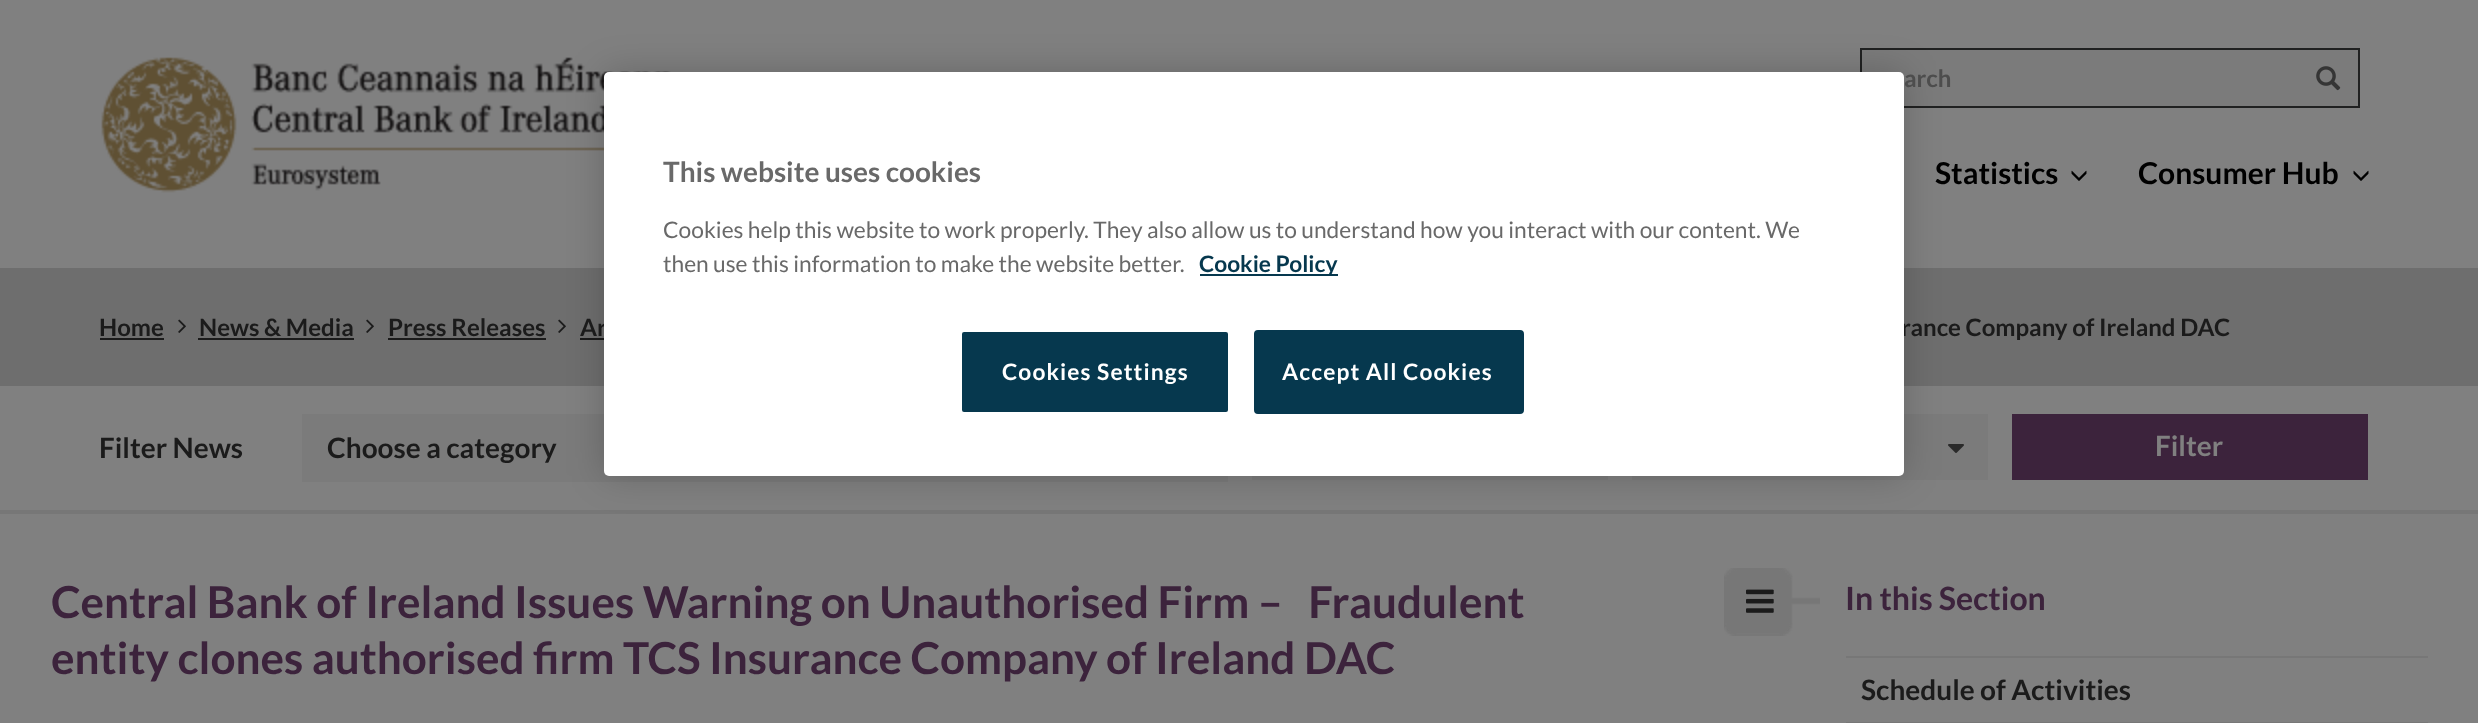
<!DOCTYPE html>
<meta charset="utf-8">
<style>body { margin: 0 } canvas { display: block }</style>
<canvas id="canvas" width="2478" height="723"></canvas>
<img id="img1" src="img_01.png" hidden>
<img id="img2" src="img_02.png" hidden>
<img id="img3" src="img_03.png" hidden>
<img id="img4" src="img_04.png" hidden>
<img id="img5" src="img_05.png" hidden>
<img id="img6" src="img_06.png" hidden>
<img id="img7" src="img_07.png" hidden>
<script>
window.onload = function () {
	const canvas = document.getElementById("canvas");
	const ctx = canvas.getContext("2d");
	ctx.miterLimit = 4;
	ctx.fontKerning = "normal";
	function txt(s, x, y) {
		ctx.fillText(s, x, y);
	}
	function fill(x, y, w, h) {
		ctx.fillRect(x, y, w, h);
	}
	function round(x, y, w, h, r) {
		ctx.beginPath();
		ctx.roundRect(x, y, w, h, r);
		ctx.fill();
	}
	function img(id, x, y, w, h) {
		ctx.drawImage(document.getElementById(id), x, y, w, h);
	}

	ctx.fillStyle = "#808080";
	fill(0, 0, 2478, 723);
	img("img1", 101, 57, 570, 136);
	ctx.fillStyle = "#7B7B7B";
	ctx.beginPath();
	ctx.rect(1861, 49, 498, 58);
	ctx.fill();
	ctx.strokeStyle = "#202121";
	ctx.lineWidth = 2;
	ctx.stroke();
	img("img2", 2316, 66, 25, 25);
	img("img3", 2071, 170, 16, 11);
	img("img3", 2353, 170, 16, 11);
	ctx.fillStyle = "#6E6E6E";
	fill(0, 268, 2478, 118);
	ctx.fillStyle = "#1B1B1B";
	fill(100, 338, 64, 2);
	img("img4", 178, 319, 8, 14);
	fill(198, 338, 156, 2);
	img("img4", 366, 319, 8, 14);
	fill(388, 338, 158, 2);
	img("img4", 558, 319, 8, 14);
	fill(580, 338, 24, 2);
	ctx.fillStyle = "#777777";
	fill(0, 510, 2478, 4);
	ctx.fillStyle = "#7B7B7B";
	fill(302, 414, 926, 68);
	fill(1632, 414, 356, 66);
	img("img5", 1948, 444, 16, 9);
	ctx.fillStyle = "#3C233C";
	fill(2012, 414, 356, 66);
	ctx.fillStyle = "#7B7B7B";
	fill(1252, 476, 356, 4);
	img("img6", 1724, 568, 96, 68);
	img("img7", 1746, 589, 28, 24);
	ctx.fillStyle = "#777777";
	fill(1846, 656, 582, 2);
	fill(1846, 722, 582, 1);
	ctx.fillStyle = "rgba(0, 0, 0, 0.2)";
	ctx.filter = "blur(18px)";
	ctx.beginPath();
	ctx.roundRect(604, 72, 1300, 404, 5);
	ctx.fill();
	ctx.filter = "none";
	ctx.font = "bold 24px Lato";
	ctx.fillStyle = "#4D4D4D";
	txt("arch", 1904, 87);
	ctx.font = "bold 30px Lato";
	ctx.fillStyle = "#000000";
	txt("Statistics", 1935, 184);
	txt("Consumer Hub", 2138, 184);
	ctx.font = "bold 24px Lato";
	ctx.fillStyle = "#1B1B1B";
	txt("Home", 99, 336);
	txt("News & Media", 199, 336);
	txt("Press Releases", 388, 336);
	txt("Ar", 580, 336);
	txt("rance Company of Ireland DAC", 1901, 336);
	ctx.font = "bold 28px Lato";
	txt("Filter News", 99, 458);
	txt("Choose a category", 327, 458);
	ctx.fillStyle = "#808080";
	txt("Filter", 2155, 456);
	ctx.font = "bold 44px Lato";
	ctx.fillStyle = "#3C233C";
	txt("Central Bank of Ireland Issues Warning on Unauthorised Firm –   Fraudulent", 51, 618);
	txt("entity clones authorised firm TCS Insurance Company of Ireland DAC", 51, 674);
	ctx.font = "bold 32px Lato";
	txt("In this Section", 1845, 610);
	ctx.font = "bold 28px Lato";
	ctx.fillStyle = "#1B1B1B";
	txt("Schedule of Activities", 1861, 700);
	ctx.fillStyle = "#FFFFFF";
	round(604, 72, 1300, 404, 5);
	ctx.fillStyle = "#696969";
	txt("This website uses cookies", 663, 182);
	ctx.font = "22.75px Lato";
	txt("Cookies help this website to work properly. They also allow us to understand how you interact with our content. We", 663, 238);
	txt("then use this information to make the website better.", 663, 272);
	ctx.fillStyle = "#06384E";
	fill(1200, 274, 138, 2);
	ctx.font = "bold 22.75px Lato";
	txt("Cookie Policy", 1199, 272);
	ctx.beginPath();
	ctx.roundRect(961, 331, 268, 82, 3);
	ctx.fill();
	ctx.strokeStyle = "#FFFFFF";
	ctx.stroke();
	ctx.letterSpacing = "1.1px";
	ctx.fillStyle = "#FFFFFF";
	txt("Cookies Settings", 1002, 380);
	ctx.fillStyle = "#06384E";
	ctx.beginPath();
	ctx.roundRect(1255, 331, 268, 82, 3);
	ctx.fill();
	ctx.strokeStyle = "#06384E";
	ctx.stroke();
	ctx.fillStyle = "#FFFFFF";
	txt("Accept All Cookies", 1282, 380);
};
</script>
